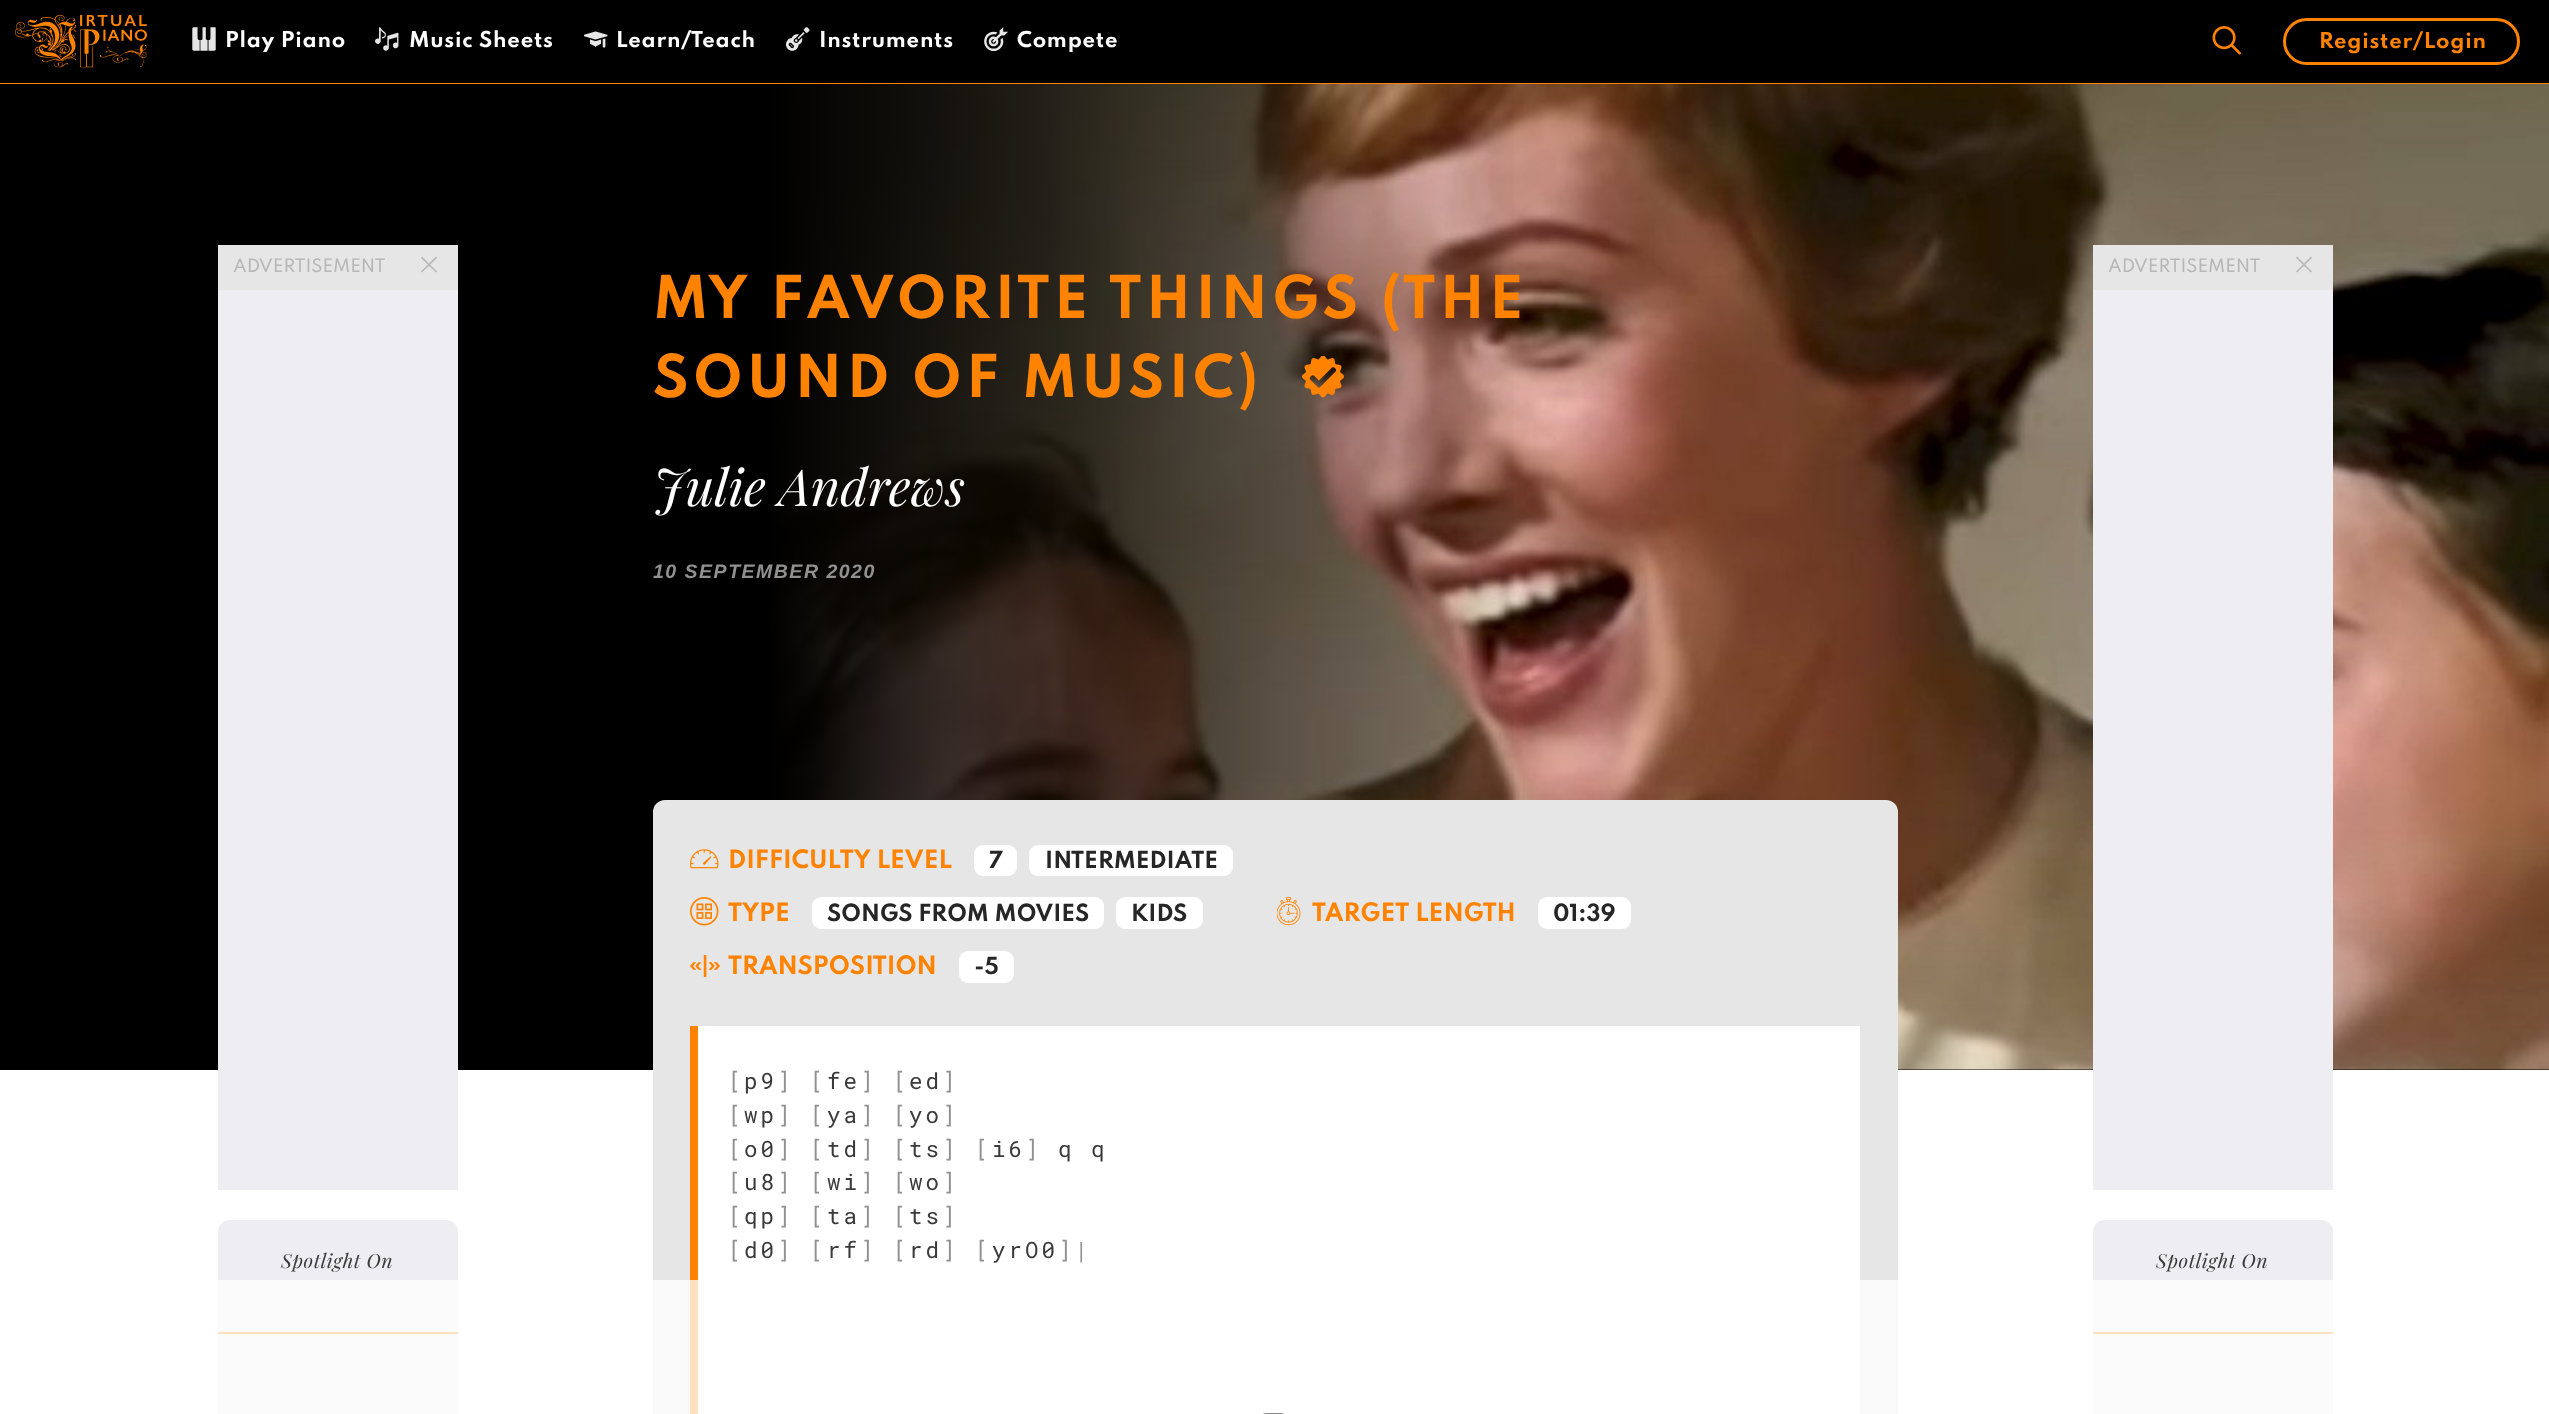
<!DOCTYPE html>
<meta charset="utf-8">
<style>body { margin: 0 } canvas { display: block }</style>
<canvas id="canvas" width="2549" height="1414"></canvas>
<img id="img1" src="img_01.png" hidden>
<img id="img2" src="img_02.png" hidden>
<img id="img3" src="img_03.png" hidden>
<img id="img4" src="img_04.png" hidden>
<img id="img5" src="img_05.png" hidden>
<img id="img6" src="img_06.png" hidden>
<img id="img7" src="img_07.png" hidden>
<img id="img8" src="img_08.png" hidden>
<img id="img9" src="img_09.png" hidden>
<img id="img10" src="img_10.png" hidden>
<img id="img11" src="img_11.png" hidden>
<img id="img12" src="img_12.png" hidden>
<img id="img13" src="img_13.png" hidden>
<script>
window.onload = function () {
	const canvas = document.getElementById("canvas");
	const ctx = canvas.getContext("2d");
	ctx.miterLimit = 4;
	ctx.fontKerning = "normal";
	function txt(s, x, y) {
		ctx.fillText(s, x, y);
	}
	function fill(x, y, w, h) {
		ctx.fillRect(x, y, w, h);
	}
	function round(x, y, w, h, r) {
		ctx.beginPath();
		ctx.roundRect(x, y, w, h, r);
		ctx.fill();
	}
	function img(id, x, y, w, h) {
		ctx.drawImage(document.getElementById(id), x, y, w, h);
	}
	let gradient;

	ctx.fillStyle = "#000000";
	fill(0, 0, 2549, 1414);
	ctx.fillStyle = "#FF8300";
	fill(0, 83, 2549, 1);
	img("img1", 15, 15, 132, 53);
	img("img2", 192, 27, 24, 24);
	img("img3", 375, 27, 24, 24);
	img("img4", 584, 31, 24, 17);
	img("img5", 786, 27, 24, 24);
	img("img6", 984, 27, 24, 24);
	img("img7", 2212, 26, 29, 29);
	ctx.beginPath();
	ctx.roundRect(2284.5, 19.5, 234, 44, 22);
	ctx.strokeStyle = "#FF8300";
	ctx.lineWidth = 3;
	ctx.stroke();
	ctx.fillStyle = "#FFFFFF";
	fill(0, 1070, 2549, 344);
	ctx.fillStyle = "#E6E6E6";
	fill(218, 245, 240, 45);
	ctx.fillStyle = "#B7B7B7";
	ctx.beginPath();
	ctx.moveTo(422, 256.5);
	ctx.lineTo(437, 271.5);
	ctx.lineTo(436, 272.5);
	ctx.lineTo(421, 258);
	ctx.closePath();
	ctx.fill();
	ctx.beginPath();
	ctx.moveTo(421, 271.5);
	ctx.lineTo(436, 256.5);
	ctx.lineTo(437, 258);
	ctx.lineTo(422, 272.5);
	ctx.closePath();
	ctx.fill();
	ctx.fillStyle = "#EDEDF2";
	fill(218, 290, 240, 900);
	round(218, 1220, 240, 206, 12);
	ctx.fillStyle = "#FF8300";
	fill(218, 1332, 240, 2);
	img("img8", 770, 84, 1779, 986);
	ctx.fillStyle = "#E6E6E6";
	fill(2093, 245, 240, 45);
	ctx.fillStyle = "#B7B7B7";
	ctx.beginPath();
	ctx.moveTo(2297, 256.5);
	ctx.lineTo(2312, 271.5);
	ctx.lineTo(2311, 272.5);
	ctx.lineTo(2296, 258);
	ctx.closePath();
	ctx.fill();
	ctx.beginPath();
	ctx.moveTo(2296, 271.5);
	ctx.lineTo(2311, 256.5);
	ctx.lineTo(2312, 258);
	ctx.lineTo(2297, 272.5);
	ctx.closePath();
	ctx.fill();
	ctx.fillStyle = "#EDEDF2";
	fill(2093, 290, 240, 900);
	round(2093, 1220, 240, 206, 12);
	ctx.fillStyle = "#FF8300";
	fill(2093, 1332, 240, 2);
	gradient = ctx.createLinearGradient(0, 577, 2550, 577);
	gradient.addColorStop(0, "#000000");
	gradient.addColorStop(0.3, "#000000");
	gradient.addColorStop(0.6, "rgba(0, 0, 0, 0)");
	ctx.fillStyle = gradient;
	fill(770, 84, 744, 986);
	img("img9", 1302, 356, 42, 42);
	ctx.fillStyle = "#E6E6E6";
	round(653, 800, 1245, 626, 12);
	img("img10", 690, 849, 29, 20);
	ctx.fillStyle = "#FFFFFF";
	round(974, 845, 43, 31, 9);
	round(1029, 845, 204, 31, 9);
	img("img11", 690, 897, 29, 29);
	round(812, 897, 292, 32, 9);
	round(1116, 897, 87, 32, 9);
	img("img12", 1277, 897, 24, 29);
	round(1538, 897, 93, 32, 9);
	img("img13", 690, 954, 30, 24);
	round(959, 951, 55, 32, 9);
	fill(698, 1026, 1162, 388);
	ctx.fillStyle = "#FF8300";
	fill(690, 1026, 8, 388);
	ctx.fillStyle = "rgba(255, 255, 255, 0.75)";
	fill(218, 1280, 2115, 134);
	ctx.beginPath();
	ctx.roundRect(1258, 1414, 31, 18, 15.5);
	ctx.strokeStyle = "#F9F9F9";
	ctx.lineWidth = 2;
	ctx.stroke();
	ctx.beginPath();
	ctx.roundRect(1258, 1414, 31, 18, 15.5);
	ctx.strokeStyle = "#888888";
	ctx.stroke();
	ctx.letterSpacing = "0.75px";
	ctx.font = "bold 19.5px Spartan";
	ctx.fillStyle = "#FFFFFF";
	txt("Play Piano", 225, 47);
	txt("Music Sheets", 409, 47);
	txt("Learn/Teach", 616, 47);
	txt("Instruments", 819, 47);
	txt("Compete", 1017, 47);
	ctx.fillStyle = "#FF8300";
	txt("Register/Login", 2319, 48);
	ctx.letterSpacing = "0px";
	ctx.font = "500 16.5px Spartan";
	ctx.fillStyle = "#B7B7B7";
	txt("ADVERTISEMENT", 233, 272);
	ctx.letterSpacing = "0.6px";
	ctx.font = "italic 19.5px Playfair Display";
	ctx.fillStyle = "#3A3A3A";
	txt("Spotlight On", 281, 1268);
	ctx.letterSpacing = "0px";
	ctx.font = "500 16.5px Spartan";
	ctx.fillStyle = "#B7B7B7";
	txt("ADVERTISEMENT", 2108, 272);
	ctx.letterSpacing = "0.6px";
	ctx.font = "italic 19.5px Playfair Display";
	ctx.fillStyle = "#3A3A3A";
	txt("Spotlight On", 2156, 1268);
	ctx.letterSpacing = "4.5px";
	ctx.font = "bold 52.5px Spartan";
	ctx.fillStyle = "#FF8300";
	txt("MY FAVORITE THINGS (THE", 653, 318);
	txt("SOUND OF MUSIC)", 653, 397);
	ctx.letterSpacing = "0px";
	ctx.font = "italic 51px Playfair Display";
	ctx.fillStyle = "#FFFFFF";
	txt("Julie Andrews", 653, 506);
	ctx.letterSpacing = "1.5px";
	ctx.font = "italic bold 19.5px Liberation Sans";
	ctx.fillStyle = "#919191";
	txt("10 SEPTEMBER 2020", 653, 578);
	ctx.letterSpacing = "0px";
	ctx.font = "bold 22.5px Spartan";
	ctx.fillStyle = "#FF8300";
	txt("DIFFICULTY LEVEL", 728, 868);
	ctx.font = "bold 21px Spartan";
	ctx.fillStyle = "#262626";
	txt("7", 989, 868);
	txt("INTERMEDIATE", 1045, 868);
	ctx.font = "bold 22.5px Spartan";
	ctx.fillStyle = "#FF8300";
	txt("TYPE", 728, 921);
	ctx.font = "bold 21px Spartan";
	ctx.fillStyle = "#262626";
	txt("SONGS FROM MOVIES", 827, 921);
	txt("KIDS", 1131, 921);
	ctx.font = "bold 22.5px Spartan";
	ctx.fillStyle = "#FF8300";
	txt("TARGET LENGTH", 1312, 921);
	ctx.font = "bold 21px Spartan";
	ctx.fillStyle = "#262626";
	txt("01:39", 1553, 921);
	ctx.font = "bold 22.5px Spartan";
	ctx.fillStyle = "#FF8300";
	txt("TRANSPOSITION", 728, 974);
	ctx.font = "bold 21px Spartan";
	ctx.fillStyle = "#262626";
	txt("-5", 974, 974);
	ctx.letterSpacing = "3px";
	ctx.font = "22.5px Roboto Mono";
	ctx.fillStyle = "#919191";
	txt("[", 728, 1089);
	ctx.fillStyle = "#3A3A3A";
	txt("p9", 744, 1089);
	ctx.fillStyle = "#919191";
	txt("] [", 777, 1089);
	ctx.fillStyle = "#3A3A3A";
	txt("fe", 827, 1089);
	ctx.fillStyle = "#919191";
	txt("] [", 860, 1089);
	ctx.fillStyle = "#3A3A3A";
	txt("ed", 909, 1089);
	ctx.fillStyle = "#919191";
	txt("]", 942, 1089);
	txt("[", 728, 1123);
	ctx.fillStyle = "#3A3A3A";
	txt("wp", 744, 1123);
	ctx.fillStyle = "#919191";
	txt("] [", 777, 1123);
	ctx.fillStyle = "#3A3A3A";
	txt("ya", 827, 1123);
	ctx.fillStyle = "#919191";
	txt("] [", 860, 1123);
	ctx.fillStyle = "#3A3A3A";
	txt("yo", 909, 1123);
	ctx.fillStyle = "#919191";
	txt("]", 942, 1123);
	txt("[", 728, 1157);
	ctx.fillStyle = "#3A3A3A";
	txt("o0", 744, 1157);
	ctx.fillStyle = "#919191";
	txt("] [", 777, 1157);
	ctx.fillStyle = "#3A3A3A";
	txt("td", 827, 1157);
	ctx.fillStyle = "#919191";
	txt("] [", 860, 1157);
	ctx.fillStyle = "#3A3A3A";
	txt("ts", 909, 1157);
	ctx.fillStyle = "#919191";
	txt("] [", 942, 1157);
	ctx.fillStyle = "#3A3A3A";
	txt("i6", 992, 1157);
	ctx.fillStyle = "#919191";
	txt("]", 1025, 1157);
	ctx.fillStyle = "#3A3A3A";
	txt("q q", 1058, 1157);
	ctx.fillStyle = "#919191";
	txt("[", 728, 1190);
	ctx.fillStyle = "#3A3A3A";
	txt("u8", 744, 1190);
	ctx.fillStyle = "#919191";
	txt("] [", 777, 1190);
	ctx.fillStyle = "#3A3A3A";
	txt("wi", 827, 1190);
	ctx.fillStyle = "#919191";
	txt("] [", 860, 1190);
	ctx.fillStyle = "#3A3A3A";
	txt("wo", 909, 1190);
	ctx.fillStyle = "#919191";
	txt("]", 942, 1190);
	txt("[", 728, 1224);
	ctx.fillStyle = "#3A3A3A";
	txt("qp", 744, 1224);
	ctx.fillStyle = "#919191";
	txt("] [", 777, 1224);
	ctx.fillStyle = "#3A3A3A";
	txt("ta", 827, 1224);
	ctx.fillStyle = "#919191";
	txt("] [", 860, 1224);
	ctx.fillStyle = "#3A3A3A";
	txt("ts", 909, 1224);
	ctx.fillStyle = "#919191";
	txt("]", 942, 1224);
	txt("[", 728, 1258);
	ctx.fillStyle = "#3A3A3A";
	txt("d0", 744, 1258);
	ctx.fillStyle = "#919191";
	txt("] [", 777, 1258);
	ctx.fillStyle = "#3A3A3A";
	txt("rf", 827, 1258);
	ctx.fillStyle = "#919191";
	txt("] [", 860, 1258);
	ctx.fillStyle = "#3A3A3A";
	txt("rd", 909, 1258);
	ctx.fillStyle = "#919191";
	txt("] [", 942, 1258);
	ctx.fillStyle = "#3A3A3A";
	txt("yrO0", 992, 1258);
	ctx.fillStyle = "#919191";
	txt("]|", 1058, 1258);
};
</script>
